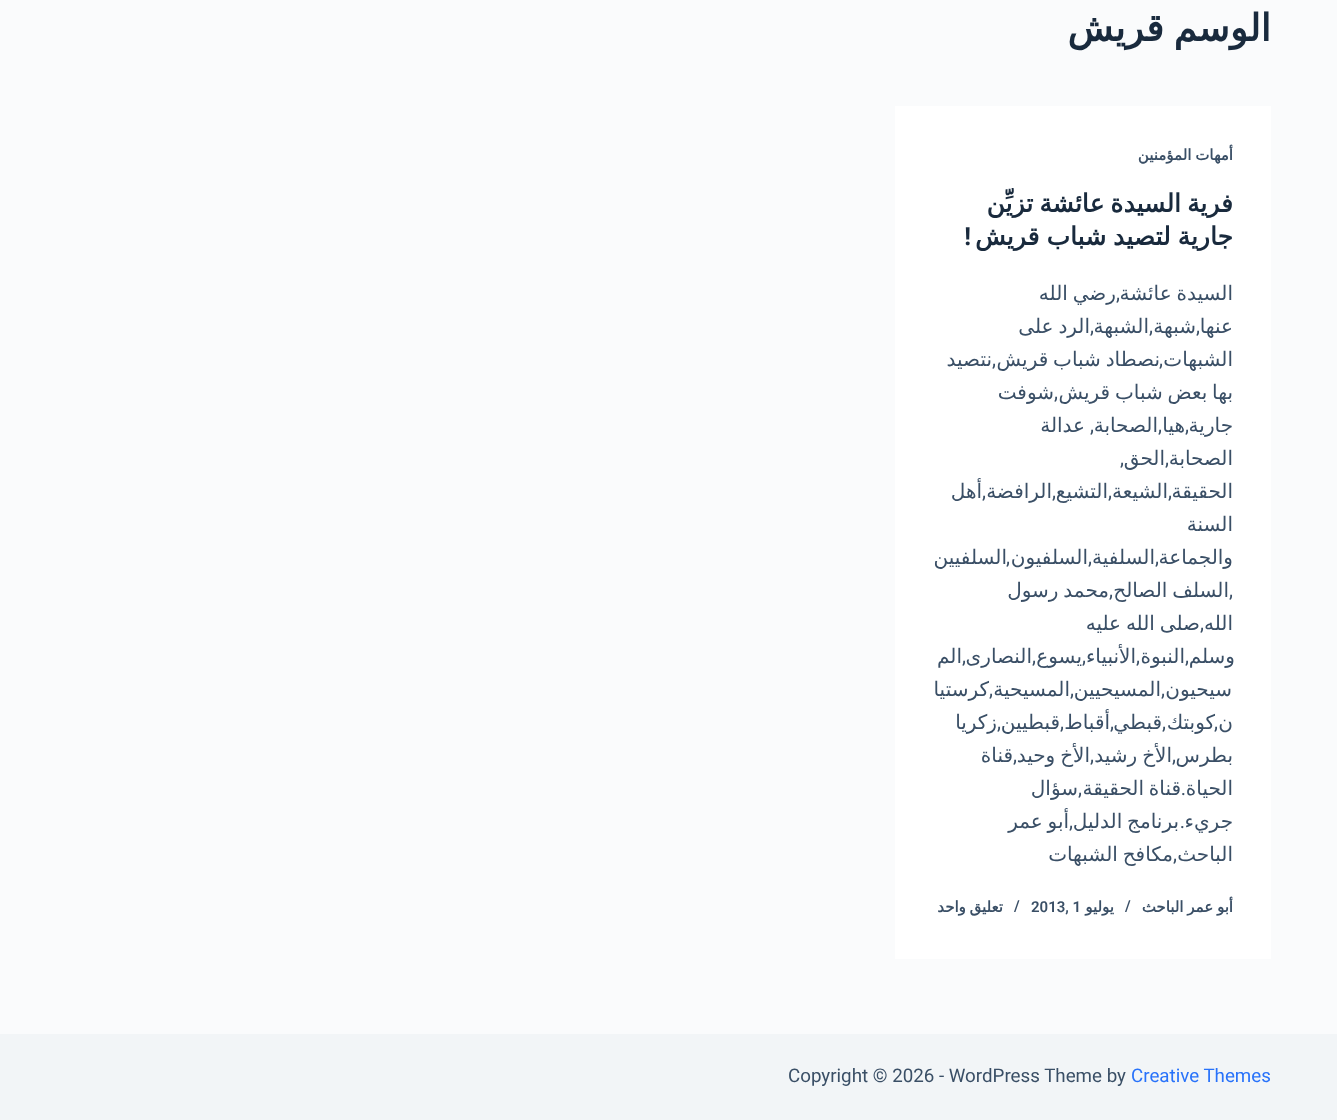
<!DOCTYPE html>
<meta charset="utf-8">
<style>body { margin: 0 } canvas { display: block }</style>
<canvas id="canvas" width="1337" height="1120"></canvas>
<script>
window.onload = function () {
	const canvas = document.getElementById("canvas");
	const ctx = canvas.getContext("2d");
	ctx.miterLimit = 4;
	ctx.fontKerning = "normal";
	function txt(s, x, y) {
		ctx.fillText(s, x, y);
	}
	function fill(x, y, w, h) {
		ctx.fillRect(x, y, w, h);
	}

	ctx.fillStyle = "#FAFBFC";
	fill(0, 0, 1337, 1120);
	ctx.fillStyle = "#FFFFFF";
	fill(895, 106, 376, 853);
	ctx.fillStyle = "#F2F5F7";
	fill(0, 1034, 1337, 86);
	ctx.direction = "rtl";
	ctx.font = "bold 37.5px DejaVu Sans";
	ctx.fillStyle = "#192A3D";
	txt("الوسم", 1271, 41);
	txt("قريش", 1164, 41);
	ctx.wordSpacing = "-1px";
	ctx.font = "bold 15px DejaVu Sans";
	ctx.fillStyle = "#3A4F66";
	txt("أمهات المؤمنين", 1233, 160);
	ctx.wordSpacing = "-2px";
	ctx.font = "bold 25px DejaVu Sans";
	ctx.fillStyle = "#192A3D";
	txt("فرية السيدة عائشة تزيِّن", 1233, 212);
	ctx.wordSpacing = "-1px";
	txt("جارية لتصيد شباب قريش", 1233, 245);
	ctx.wordSpacing = "0px";
	ctx.font = "bold 25px Roboto";
	txt("!", 971, 245);
	ctx.wordSpacing = "-1.5px";
	ctx.font = "20px DejaVu Sans";
	ctx.fillStyle = "#3A4F66";
	txt("السيدة عائشة", 1233, 300);
	txt("رضي الله", 1116, 300);
	ctx.wordSpacing = "0px";
	ctx.font = "20px Roboto";
	txt(",", 1120, 300);
	ctx.font = "20px DejaVu Sans";
	txt("عنها", 1233, 333);
	ctx.font = "20px Roboto";
	txt(",", 1200, 333);
	ctx.font = "20px DejaVu Sans";
	txt("شبهة", 1196, 333);
	ctx.font = "20px Roboto";
	txt(",", 1153, 333);
	ctx.font = "20px DejaVu Sans";
	txt("الشبهة", 1149, 333);
	ctx.font = "20px Roboto";
	txt(",", 1094, 333);
	ctx.wordSpacing = "-1.5px";
	ctx.font = "20px DejaVu Sans";
	txt("الرد على", 1090, 333);
	ctx.wordSpacing = "0px";
	txt("الشبهات", 1233, 366);
	ctx.wordSpacing = "-1.5px";
	txt("نصطاد شباب قريش", 1160, 366);
	ctx.wordSpacing = "0px";
	ctx.font = "20px Roboto";
	txt(",", 996, 366);
	ctx.font = "20px DejaVu Sans";
	txt("نتصيد", 992, 366);
	ctx.font = "20px Roboto";
	txt(",", 1163, 366);
	ctx.wordSpacing = "-1.5px";
	ctx.font = "20px DejaVu Sans";
	txt("بها بعض شباب قريش", 1233, 399);
	ctx.wordSpacing = "0px";
	ctx.font = "20px Roboto";
	txt(",", 1058, 399);
	ctx.font = "20px DejaVu Sans";
	txt("شوفت", 1054, 399);
	txt("جارية", 1233, 432);
	ctx.font = "20px Roboto";
	txt(",", 1189, 432);
	ctx.font = "20px DejaVu Sans";
	txt("هيا", 1185, 432);
	ctx.font = "20px Roboto";
	txt(",", 1162, 432);
	ctx.font = "20px DejaVu Sans";
	txt("الصحابة", 1158, 432);
	ctx.font = "20px Roboto";
	txt(",", 1094, 432);
	ctx.font = "20px DejaVu Sans";
	txt("عدالة", 1085, 432);
	txt("الصحابة", 1233, 465);
	ctx.font = "20px Roboto";
	txt(",", 1169, 465);
	ctx.font = "20px DejaVu Sans";
	txt("الحق", 1165, 465);
	ctx.font = "20px Roboto";
	txt(",", 1124, 465);
	ctx.font = "20px DejaVu Sans";
	txt("الحقيقة", 1233, 498);
	ctx.font = "20px Roboto";
	txt(",", 1172, 498);
	ctx.font = "20px DejaVu Sans";
	txt("الشيعة", 1168, 498);
	ctx.font = "20px Roboto";
	txt(",", 1112, 498);
	ctx.font = "20px DejaVu Sans";
	txt("التشيع", 1108, 498);
	ctx.font = "20px Roboto";
	txt(",", 1056, 498);
	ctx.font = "20px DejaVu Sans";
	txt("الرافضة", 1052, 498);
	ctx.font = "20px Roboto";
	txt(",", 986, 498);
	ctx.font = "20px DejaVu Sans";
	txt("أهل", 982, 498);
	txt("السنة", 1233, 531);
	txt("والجماعة", 1233, 564);
	ctx.font = "20px Roboto";
	txt(",", 1159, 564);
	ctx.font = "20px DejaVu Sans";
	txt("السلفية", 1155, 564);
	ctx.font = "20px Roboto";
	txt(",", 1092, 564);
	ctx.font = "20px DejaVu Sans";
	txt("السلفيون", 1088, 564);
	ctx.font = "20px Roboto";
	txt(",", 1010, 564);
	ctx.font = "20px DejaVu Sans";
	txt("السلفيين", 1007, 564);
	ctx.font = "20px Roboto";
	txt(",", 1233, 597);
	ctx.wordSpacing = "-1.5px";
	ctx.font = "20px DejaVu Sans";
	txt("السلف الصالح", 1229, 597);
	txt("محمد رسول", 1109, 597);
	ctx.wordSpacing = "0px";
	ctx.font = "20px Roboto";
	txt(",", 1113, 597);
	ctx.font = "20px DejaVu Sans";
	txt("الله", 1233, 630);
	ctx.wordSpacing = "-1.5px";
	txt("صلى الله عليه", 1200, 630);
	ctx.wordSpacing = "0px";
	ctx.font = "20px Roboto";
	txt(",", 1204, 630);
	ctx.font = "20px DejaVu Sans";
	txt("وسلم", 1235, 663);
	ctx.font = "20px Roboto";
	txt(",", 1189, 663);
	ctx.font = "20px DejaVu Sans";
	txt("النبوة", 1185, 663);
	ctx.font = "20px Roboto";
	txt(",", 1140, 663);
	ctx.font = "20px DejaVu Sans";
	txt("الأنبياء", 1136, 663);
	ctx.font = "20px Roboto";
	txt(",", 1086, 663);
	ctx.font = "20px DejaVu Sans";
	txt("يسوع", 1082, 663);
	ctx.font = "20px Roboto";
	txt(",", 1036, 663);
	ctx.font = "20px DejaVu Sans";
	txt("النصارى", 1032, 663);
	ctx.font = "20px Roboto";
	txt(",", 966, 663);
	ctx.font = "20px DejaVu Sans";
	txt("الم", 962, 663);
	txt("سيحيون", 1232, 696);
	ctx.font = "20px Roboto";
	txt(",", 1165, 696);
	ctx.font = "20px DejaVu Sans";
	txt("المسيحيين", 1161, 696);
	ctx.font = "20px Roboto";
	txt(",", 1074, 696);
	ctx.font = "20px DejaVu Sans";
	txt("المسيحية", 1070, 696);
	txt("كرستيا", 989, 696);
	ctx.font = "20px Roboto";
	txt(",", 993, 696);
	ctx.font = "20px DejaVu Sans";
	txt("ن", 1233, 729);
	txt("كوبتك", 1215, 729);
	ctx.font = "20px Roboto";
	txt(",", 1218, 729);
	txt(",", 1166, 729);
	ctx.font = "20px DejaVu Sans";
	txt("قبطي", 1162, 729);
	ctx.font = "20px Roboto";
	txt(",", 1114, 729);
	ctx.font = "20px DejaVu Sans";
	txt("أقباط", 1110, 729);
	ctx.font = "20px Roboto";
	txt(",", 1064, 729);
	ctx.font = "20px DejaVu Sans";
	txt("قبطيين", 1060, 729);
	ctx.font = "20px Roboto";
	txt(",", 1001, 729);
	ctx.font = "20px DejaVu Sans";
	txt("زكريا", 997, 729);
	txt("بطرس", 1233, 762);
	ctx.font = "20px Roboto";
	txt(",", 1176, 762);
	ctx.wordSpacing = "-1.5px";
	ctx.font = "20px DejaVu Sans";
	txt("الأخ رشيد", 1172, 762);
	ctx.wordSpacing = "0px";
	ctx.font = "20px Roboto";
	txt(",", 1094, 762);
	ctx.wordSpacing = "-1.5px";
	ctx.font = "20px DejaVu Sans";
	txt("الأخ وحيد", 1090, 762);
	ctx.wordSpacing = "0px";
	ctx.font = "20px Roboto";
	txt(",", 1017, 762);
	ctx.font = "20px DejaVu Sans";
	txt("قناة", 1013, 762);
	txt("الحياة", 1233, 795);
	ctx.font = "20px Roboto";
	txt(".", 1186, 795);
	ctx.wordSpacing = "-1.5px";
	ctx.font = "20px DejaVu Sans";
	txt("قناة الحقيقة", 1181, 795);
	ctx.wordSpacing = "0px";
	ctx.font = "20px Roboto";
	txt(",", 1082, 795);
	ctx.font = "20px DejaVu Sans";
	txt("سؤال", 1078, 795);
	txt("جريء", 1233, 828);
	ctx.font = "20px Roboto";
	txt(".", 1185, 828);
	ctx.wordSpacing = "-1.5px";
	ctx.font = "20px DejaVu Sans";
	txt("برنامج الدليل", 1179, 828);
	txt("أبو عمر", 1069, 828);
	ctx.wordSpacing = "0px";
	ctx.font = "20px Roboto";
	txt(",", 1073, 828);
	ctx.font = "20px DejaVu Sans";
	txt("الباحث", 1233, 861);
	ctx.wordSpacing = "-1.5px";
	txt("مكافح الشبهات", 1173, 861);
	ctx.wordSpacing = "0px";
	ctx.font = "20px Roboto";
	txt(",", 1177, 861);
	ctx.wordSpacing = "-1px";
	ctx.font = "bold 15px DejaVu Sans";
	txt("أبو عمر الباحث", 1233, 912);
	ctx.wordSpacing = "0px";
	ctx.direction = "ltr";
	ctx.font = "600 15px Roboto";
	txt("/", 1125, 911);
	ctx.direction = "rtl";
	ctx.font = "bold 15px DejaVu Sans";
	txt("يوليو", 1114, 912);
	ctx.direction = "ltr";
	ctx.font = "600 15px Roboto";
	txt("2013, 1", 1031, 912);
	txt("/", 1014, 911);
	ctx.wordSpacing = "-1px";
	ctx.direction = "rtl";
	ctx.font = "bold 15px DejaVu Sans";
	txt("تعليق واحد", 1003, 912);
	ctx.wordSpacing = "0px";
	ctx.direction = "ltr";
	ctx.font = "18.75px Roboto";
	ctx.fillStyle = "#2872FA";
	txt("Creative Themes", 1131, 1082);
	ctx.fillStyle = "#3A4F66";
	txt("Copyright © 2026 - WordPress Theme by", 788, 1082);
};
</script>
